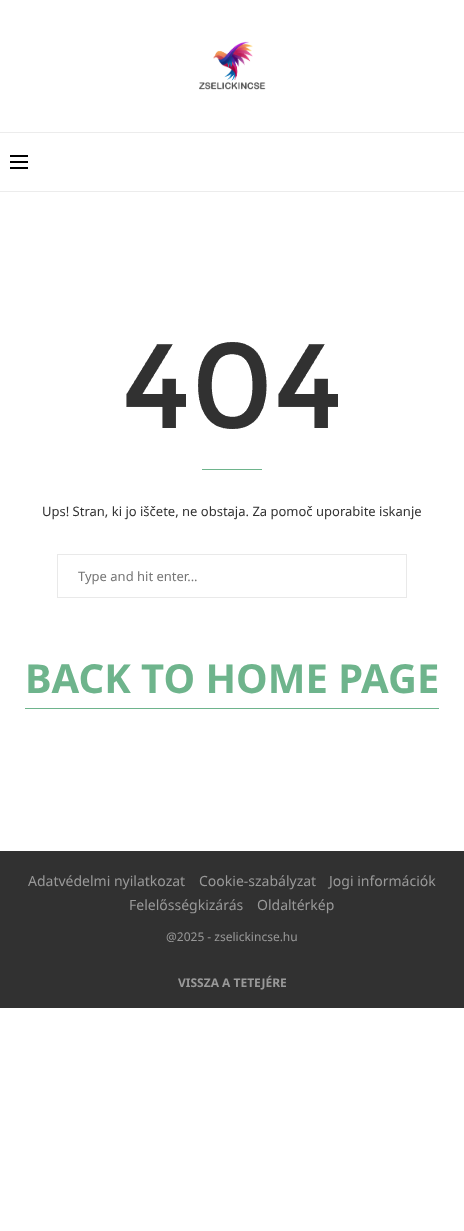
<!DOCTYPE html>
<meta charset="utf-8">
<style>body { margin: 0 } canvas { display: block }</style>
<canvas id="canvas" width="464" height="1231"></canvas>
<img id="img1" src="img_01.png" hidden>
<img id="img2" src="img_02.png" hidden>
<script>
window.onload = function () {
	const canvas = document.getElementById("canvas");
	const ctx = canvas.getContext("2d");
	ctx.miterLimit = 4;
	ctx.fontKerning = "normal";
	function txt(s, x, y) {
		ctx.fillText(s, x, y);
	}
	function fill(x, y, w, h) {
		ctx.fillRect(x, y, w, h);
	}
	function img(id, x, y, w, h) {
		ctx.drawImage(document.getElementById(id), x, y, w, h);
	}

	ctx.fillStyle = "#FFFFFF";
	fill(0, 0, 464, 1231);
	img("img1", 199, 41, 67, 49);
	ctx.fillStyle = "#ECECEC";
	fill(0, 132, 464, 1);
	fill(0, 191, 464, 1);
	ctx.fillStyle = "#000000";
	fill(10, 155, 18, 2);
	fill(10, 161, 18, 2);
	fill(10, 167, 18, 2);
	img("img2", 126, 342, 212, 87);
	ctx.fillStyle = "#6EB48C";
	fill(202, 469, 60, 1);
	ctx.strokeStyle = "#E9E9E9";
	ctx.strokeRect(57.5, 554.5, 349, 43);
	fill(25, 708, 414, 1);
	ctx.fillStyle = "#313131";
	fill(0, 851, 464, 157);
	ctx.font = "13px Noto Sans";
	txt("Ups! Stran, ki jo iščete, ne obstaja. Za pomoč uporabite iskanje", 42, 516);
	ctx.fillStyle = "#757575";
	txt("Type and hit enter...", 78, 581);
	ctx.font = "bold 40px Noto Sans";
	ctx.fillStyle = "#6EB48C";
	txt("BACK TO HOME PAGE", 25, 693);
	ctx.font = "14px Noto Sans";
	ctx.fillStyle = "#999999";
	txt("Adatvédelmi nyilatkozat", 28, 886);
	txt("Cookie-szabályzat", 199, 886);
	txt("Jogi információk", 329, 886);
	txt("Felelősségkizárás", 129, 910);
	txt("Oldaltérkép", 257, 910);
	ctx.font = "12px Noto Sans";
	txt("@2025 - zselickincse.hu", 166, 941);
	ctx.font = "bold 12px Noto Sans";
	txt("VISSZA A TETEJÉRE", 178, 987);
};
</script>
